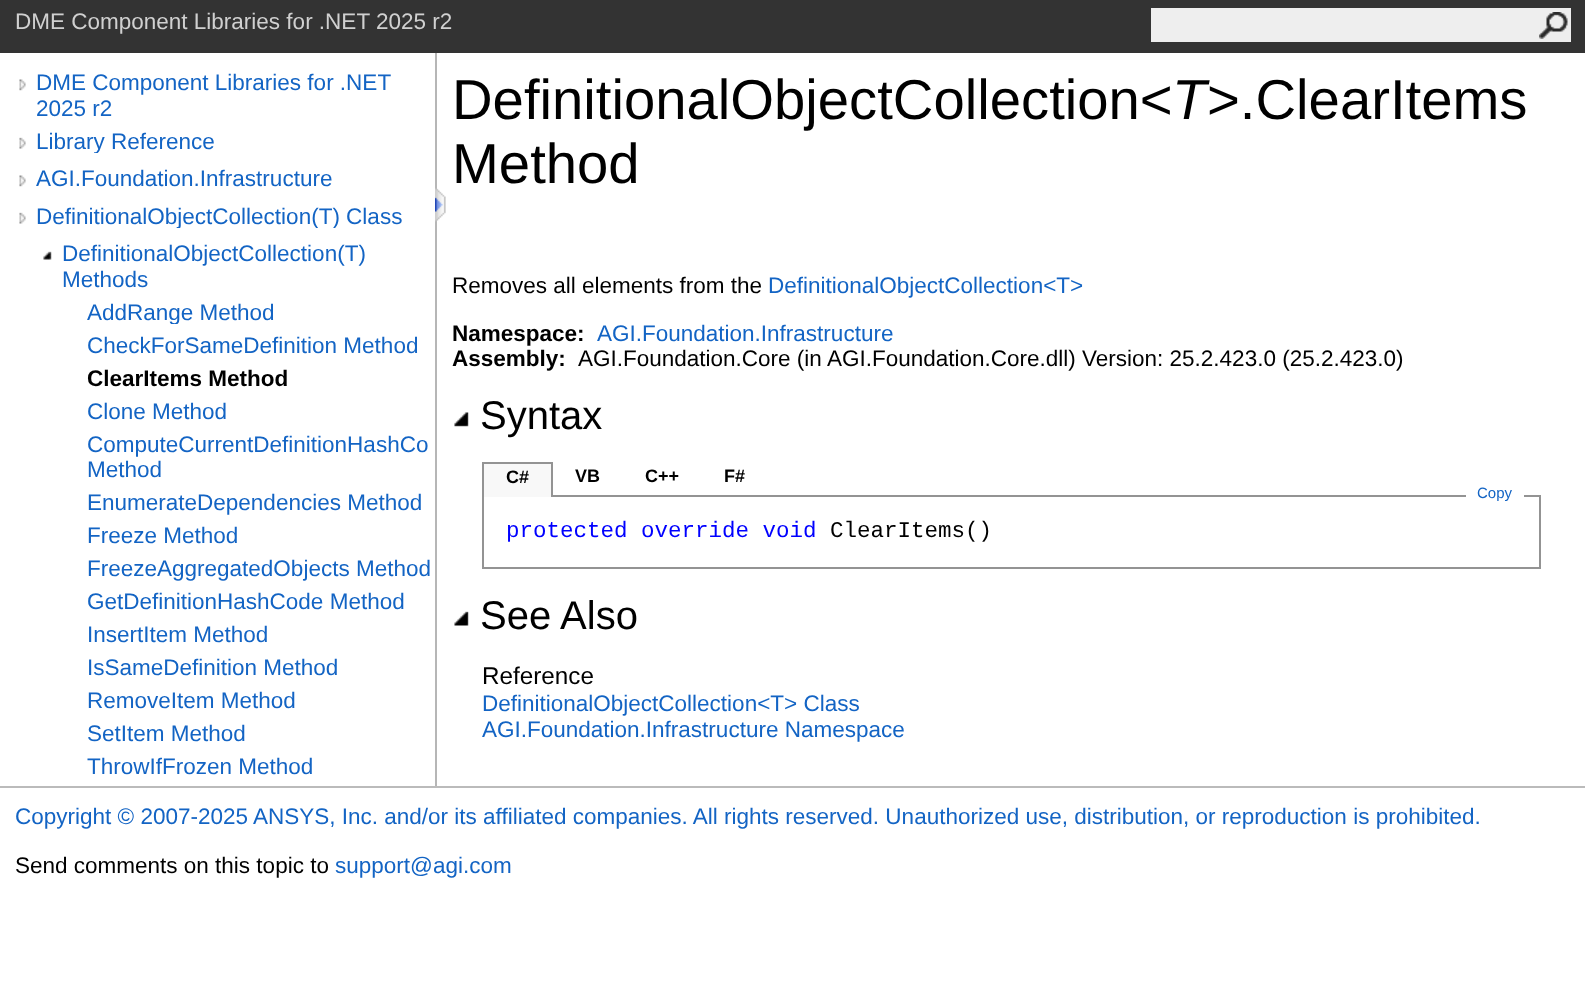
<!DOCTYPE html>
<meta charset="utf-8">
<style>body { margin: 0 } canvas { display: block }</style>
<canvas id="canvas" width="1585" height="1003"></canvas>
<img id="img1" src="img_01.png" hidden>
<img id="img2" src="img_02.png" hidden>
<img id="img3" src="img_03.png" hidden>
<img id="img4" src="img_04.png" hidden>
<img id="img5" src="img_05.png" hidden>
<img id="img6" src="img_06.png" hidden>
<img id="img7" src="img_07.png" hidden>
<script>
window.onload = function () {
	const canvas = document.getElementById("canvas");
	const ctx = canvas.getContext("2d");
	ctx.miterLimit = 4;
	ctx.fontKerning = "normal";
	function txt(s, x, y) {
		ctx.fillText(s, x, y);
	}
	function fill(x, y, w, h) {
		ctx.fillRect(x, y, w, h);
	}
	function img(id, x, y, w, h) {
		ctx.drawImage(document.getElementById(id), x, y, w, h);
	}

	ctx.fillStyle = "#FFFFFF";
	fill(0, 0, 1585, 1003);
	ctx.fillStyle = "#333333";
	fill(0, 0, 1585, 53);
	ctx.fillStyle = "#EEEEEE";
	fill(1151, 8, 420, 34);
	img("img1", 1539, 12, 29, 27);
	ctx.fillStyle = "#B6B6B6";
	fill(435, 53, 2, 733);
	img("img2", 19, 79, 7, 12);
	img("img3", 19, 137, 7, 12);
	img("img2", 19, 175, 7, 12);
	img("img3", 19, 212, 7, 12);
	img("img4", 43, 251, 9, 9);
	img("img5", 435, 188, 11, 34);
	img("img6", 454, 412, 15, 15);
	ctx.strokeStyle = "#939393";
	ctx.lineWidth = 2;
	ctx.strokeRect(483, 496, 1057, 72);
	ctx.fillStyle = "#F8F8F8";
	fill(484, 464, 67, 33);
	ctx.fillStyle = "#939393";
	fill(482, 462, 70, 2);
	fill(551, 462, 2, 35);
	fill(482, 462, 2, 35);
	ctx.fillStyle = "#FFFFFF";
	fill(1466, 495, 58, 2);
	img("img7", 454, 611, 15, 15);
	ctx.fillStyle = "#BBBBBB";
	fill(0, 786, 1585, 2);
	ctx.font = "22.5px Liberation Sans";
	ctx.fillStyle = "#D0D0D0";
	txt("DME Component Libraries for .NET 2025 r2", 15, 29);
	ctx.fillStyle = "#1364C4";
	txt("DME Component Libraries for .NET", 36, 90);
	txt("2025 r2", 36, 116);
	ctx.save();
	ctx.beginPath();
	ctx.rect(36, 128, 399, 25);
	ctx.clip();
	txt("Library Reference", 36, 149);
	ctx.restore();
	txt("AGI.Foundation.Infrastructure", 36, 186);
	ctx.save();
	ctx.beginPath();
	ctx.rect(36, 203, 399, 25);
	ctx.clip();
	txt("DefinitionalObjectCollection(T) Class", 36, 224);
	ctx.restore();
	txt("DefinitionalObjectCollection(T)", 62, 261);
	txt("Methods", 62, 287);
	ctx.save();
	ctx.beginPath();
	ctx.rect(87, 299, 348, 25);
	ctx.clip();
	txt("AddRange Method", 87, 320);
	ctx.restore();
	txt("CheckForSameDefinition Method", 87, 353);
	ctx.font = "bold 22.5px Liberation Sans";
	ctx.fillStyle = "#000000";
	txt("ClearItems Method", 87, 386);
	ctx.font = "22.5px Liberation Sans";
	ctx.fillStyle = "#1364C4";
	txt("Clone Method", 87, 419);
	txt("ComputeCurrentDefinitionHashCo", 87, 452);
	txt("Method", 87, 477);
	txt("EnumerateDependencies Method", 87, 510);
	txt("Freeze Method", 87, 543);
	txt("FreezeAggregatedObjects Method", 87, 576);
	txt("GetDefinitionHashCode Method", 87, 609);
	txt("InsertItem Method", 87, 642);
	txt("IsSameDefinition Method", 87, 675);
	txt("RemoveItem Method", 87, 708);
	txt("SetItem Method", 87, 741);
	txt("ThrowIfFrozen Method", 87, 774);
	ctx.font = "56.25px Liberation Sans";
	ctx.fillStyle = "#000000";
	txt("DefinitionalObjectCollection<", 452, 119);
	ctx.font = "italic 56.25px Liberation Sans";
	txt("T", 1172, 119);
	ctx.font = "56.25px Liberation Sans";
	txt(">.ClearItems", 1207, 119);
	txt("Method", 452, 183);
	ctx.font = "22.5px Liberation Sans";
	txt("Removes all elements from the", 452, 293);
	ctx.fillStyle = "#1364C4";
	txt("DefinitionalObjectCollection<T>", 768, 293);
	ctx.font = "bold 22.5px Liberation Sans";
	ctx.fillStyle = "#000000";
	txt("Namespace:", 452, 341);
	ctx.font = "22.5px Liberation Sans";
	ctx.fillStyle = "#1364C4";
	txt("AGI.Foundation.Infrastructure", 597, 341);
	ctx.font = "bold 22.5px Liberation Sans";
	ctx.fillStyle = "#000000";
	txt("Assembly:", 452, 366);
	ctx.font = "22.5px Liberation Sans";
	txt("AGI.Foundation.Core (in AGI.Foundation.Core.dll) Version: 25.2.423.0 (25.2.423.0)", 578, 366);
	ctx.font = "40px Liberation Sans";
	txt("Syntax", 480, 429);
	ctx.font = "bold 18px Liberation Sans";
	txt("C#", 506, 483);
	txt("VB", 575, 482);
	txt("C++", 645, 482);
	txt("F#", 724, 482);
	ctx.font = "15px Liberation Sans";
	ctx.fillStyle = "#1364C4";
	txt("Copy", 1477, 498);
	ctx.font = "22.5px Liberation Mono";
	ctx.fillStyle = "#0000FF";
	txt("protected override void", 506, 537);
	ctx.fillStyle = "#000000";
	txt("ClearItems()", 830, 537);
	ctx.font = "40px Liberation Sans";
	txt("See Also", 480, 629);
	ctx.font = "24.25px Liberation Sans";
	txt("Reference", 482, 684);
	ctx.font = "22.5px Liberation Sans";
	ctx.fillStyle = "#1364C4";
	txt("DefinitionalObjectCollection<T> Class", 482, 711);
	txt("AGI.Foundation.Infrastructure Namespace", 482, 737);
	txt("Copyright © 2007-2025 ANSYS, Inc. and/or its affiliated companies. All rights reserved. Unauthorized use, distribution, or reproduction is prohibited.", 15, 824);
	ctx.fillStyle = "#000000";
	txt("Send comments on this topic to", 15, 873);
	ctx.fillStyle = "#1364C4";
	txt("support@agi.com", 335, 873);
};
</script>
